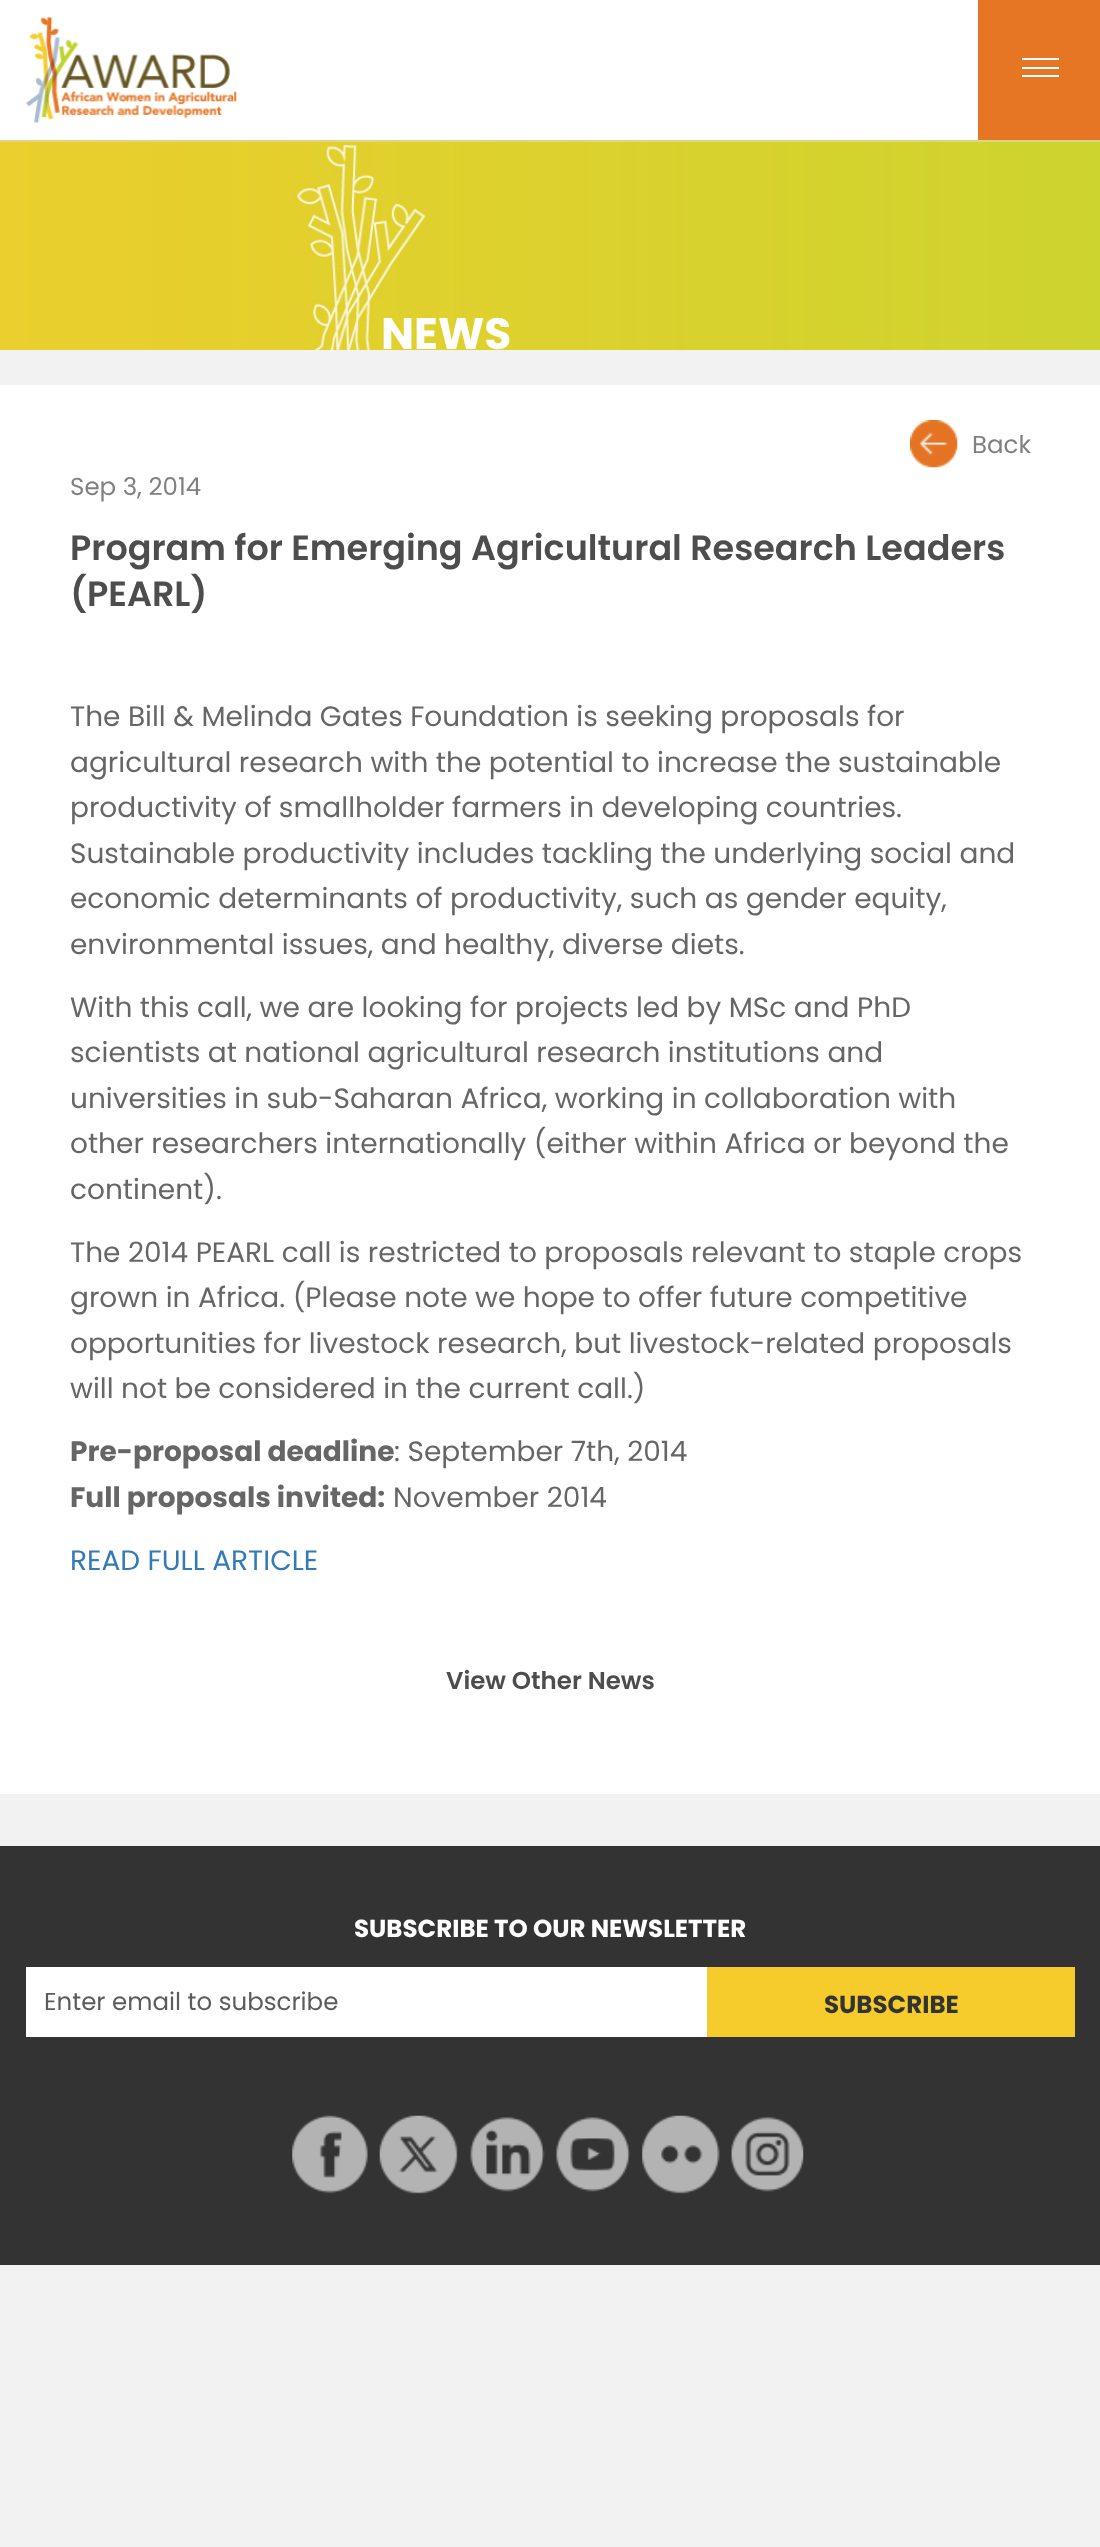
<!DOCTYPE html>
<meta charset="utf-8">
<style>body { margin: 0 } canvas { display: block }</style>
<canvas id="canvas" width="1100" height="2547"></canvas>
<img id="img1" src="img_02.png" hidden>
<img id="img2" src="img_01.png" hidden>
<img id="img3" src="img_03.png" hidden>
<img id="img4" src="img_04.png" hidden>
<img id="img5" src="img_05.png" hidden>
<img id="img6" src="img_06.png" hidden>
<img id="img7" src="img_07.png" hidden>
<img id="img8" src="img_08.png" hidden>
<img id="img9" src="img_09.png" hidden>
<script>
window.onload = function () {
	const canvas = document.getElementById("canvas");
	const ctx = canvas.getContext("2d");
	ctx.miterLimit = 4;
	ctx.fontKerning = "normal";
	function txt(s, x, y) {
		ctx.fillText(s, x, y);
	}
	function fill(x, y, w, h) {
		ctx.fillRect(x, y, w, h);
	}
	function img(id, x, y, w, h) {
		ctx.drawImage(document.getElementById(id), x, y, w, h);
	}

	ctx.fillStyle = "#F2F2F2";
	fill(0, 0, 1100, 2547);
	img("img1", 0, 140, 1100, 210);
	ctx.fillStyle = "rgba(219, 219, 219, 0.5)";
	fill(0, 140, 1100, 2);
	ctx.fillStyle = "#FFFFFF";
	fill(0, 0, 978, 140);
	img("img2", 26, 17, 211, 106);
	ctx.fillStyle = "#E67524";
	fill(978, 0, 122, 140);
	ctx.fillStyle = "#FFFFFF";
	fill(1022, 58, 37, 2);
	fill(1022, 67, 37, 2);
	fill(1022, 75, 37, 2);
	fill(0, 385, 1100, 1409);
	img("img3", 910, 420, 48, 48);
	ctx.fillStyle = "#333333";
	fill(0, 1846, 1100, 419);
	ctx.fillStyle = "#FFFFFF";
	fill(26, 1967, 681, 70);
	ctx.fillStyle = "#F5CC2C";
	fill(707, 1967, 368, 70);
	img("img4", 292, 2115, 76, 79);
	img("img5", 379, 2115, 79, 79);
	img("img6", 470, 2117, 75, 75);
	img("img7", 556, 2117, 75, 75);
	img("img8", 642, 2115, 78, 79);
	img("img9", 731, 2117, 73, 75);
	ctx.font = "bold 44px Poppins";
	ctx.fillStyle = "#FFFFFF";
	txt("NEWS", 381, 349);
	ctx.font = "24.5px Poppins";
	ctx.fillStyle = "#808080";
	txt("Back", 972, 453);
	txt("Sep 3, 2014", 70, 495);
	ctx.font = "600 35px Poppins";
	ctx.fillStyle = "#4D4D4D";
	txt("Program for Emerging Agricultural Research Leaders", 70, 560);
	txt("(PEARL)", 70, 606);
	ctx.font = "28px Poppins";
	ctx.fillStyle = "#666666";
	txt("The Bill & Melinda Gates Foundation is seeking proposals for", 70, 726);
	txt("agricultural research with the potential to increase the sustainable", 70, 772);
	txt("productivity of smallholder farmers in developing countries.", 70, 817);
	txt("Sustainable productivity includes tackling the underlying social and", 70, 863);
	txt("economic determinants of productivity, such as gender equity,", 70, 908);
	txt("environmental issues, and healthy, diverse diets.", 70, 954);
	txt("With this call, we are looking for projects led by MSc and PhD", 70, 1017);
	txt("scientists at national agricultural research institutions and", 70, 1062);
	txt("universities in sub-Saharan Africa, working in collaboration with", 70, 1108);
	txt("other researchers internationally (either within Africa or beyond the", 70, 1153);
	txt("continent).", 70, 1199);
	txt("The 2014 PEARL call is restricted to proposals relevant to staple crops", 70, 1262);
	txt("grown in Africa. (Please note we hope to offer future competitive", 70, 1307);
	txt("opportunities for livestock research, but livestock-related proposals", 70, 1353);
	txt("will not be considered in the current call.)", 70, 1398);
	ctx.font = "bold 28px Poppins";
	txt("Pre-proposal deadline", 70, 1461);
	ctx.font = "28px Poppins";
	txt(": September 7th, 2014", 394, 1461);
	ctx.font = "bold 28px Poppins";
	txt("Full proposals invited:", 70, 1507);
	ctx.font = "28px Poppins";
	txt("November 2014", 393, 1507);
	ctx.fillStyle = "#337AB7";
	txt("READ FULL ARTICLE", 70, 1570);
	ctx.font = "600 24.5px Poppins";
	ctx.fillStyle = "#4D4D4D";
	txt("View Other News", 446, 1689);
	ctx.font = "bold 24.5px Poppins";
	ctx.fillStyle = "#FFFFFF";
	txt("SUBSCRIBE TO OUR NEWSLETTER", 354, 1937);
	ctx.font = "24.5px Poppins";
	ctx.fillStyle = "#5C5C5C";
	txt("Enter email to subscribe", 44, 2010);
	ctx.font = "bold 24.5px Poppins";
	ctx.fillStyle = "#333333";
	txt("SUBSCRIBE", 824, 2013);
};
</script>
